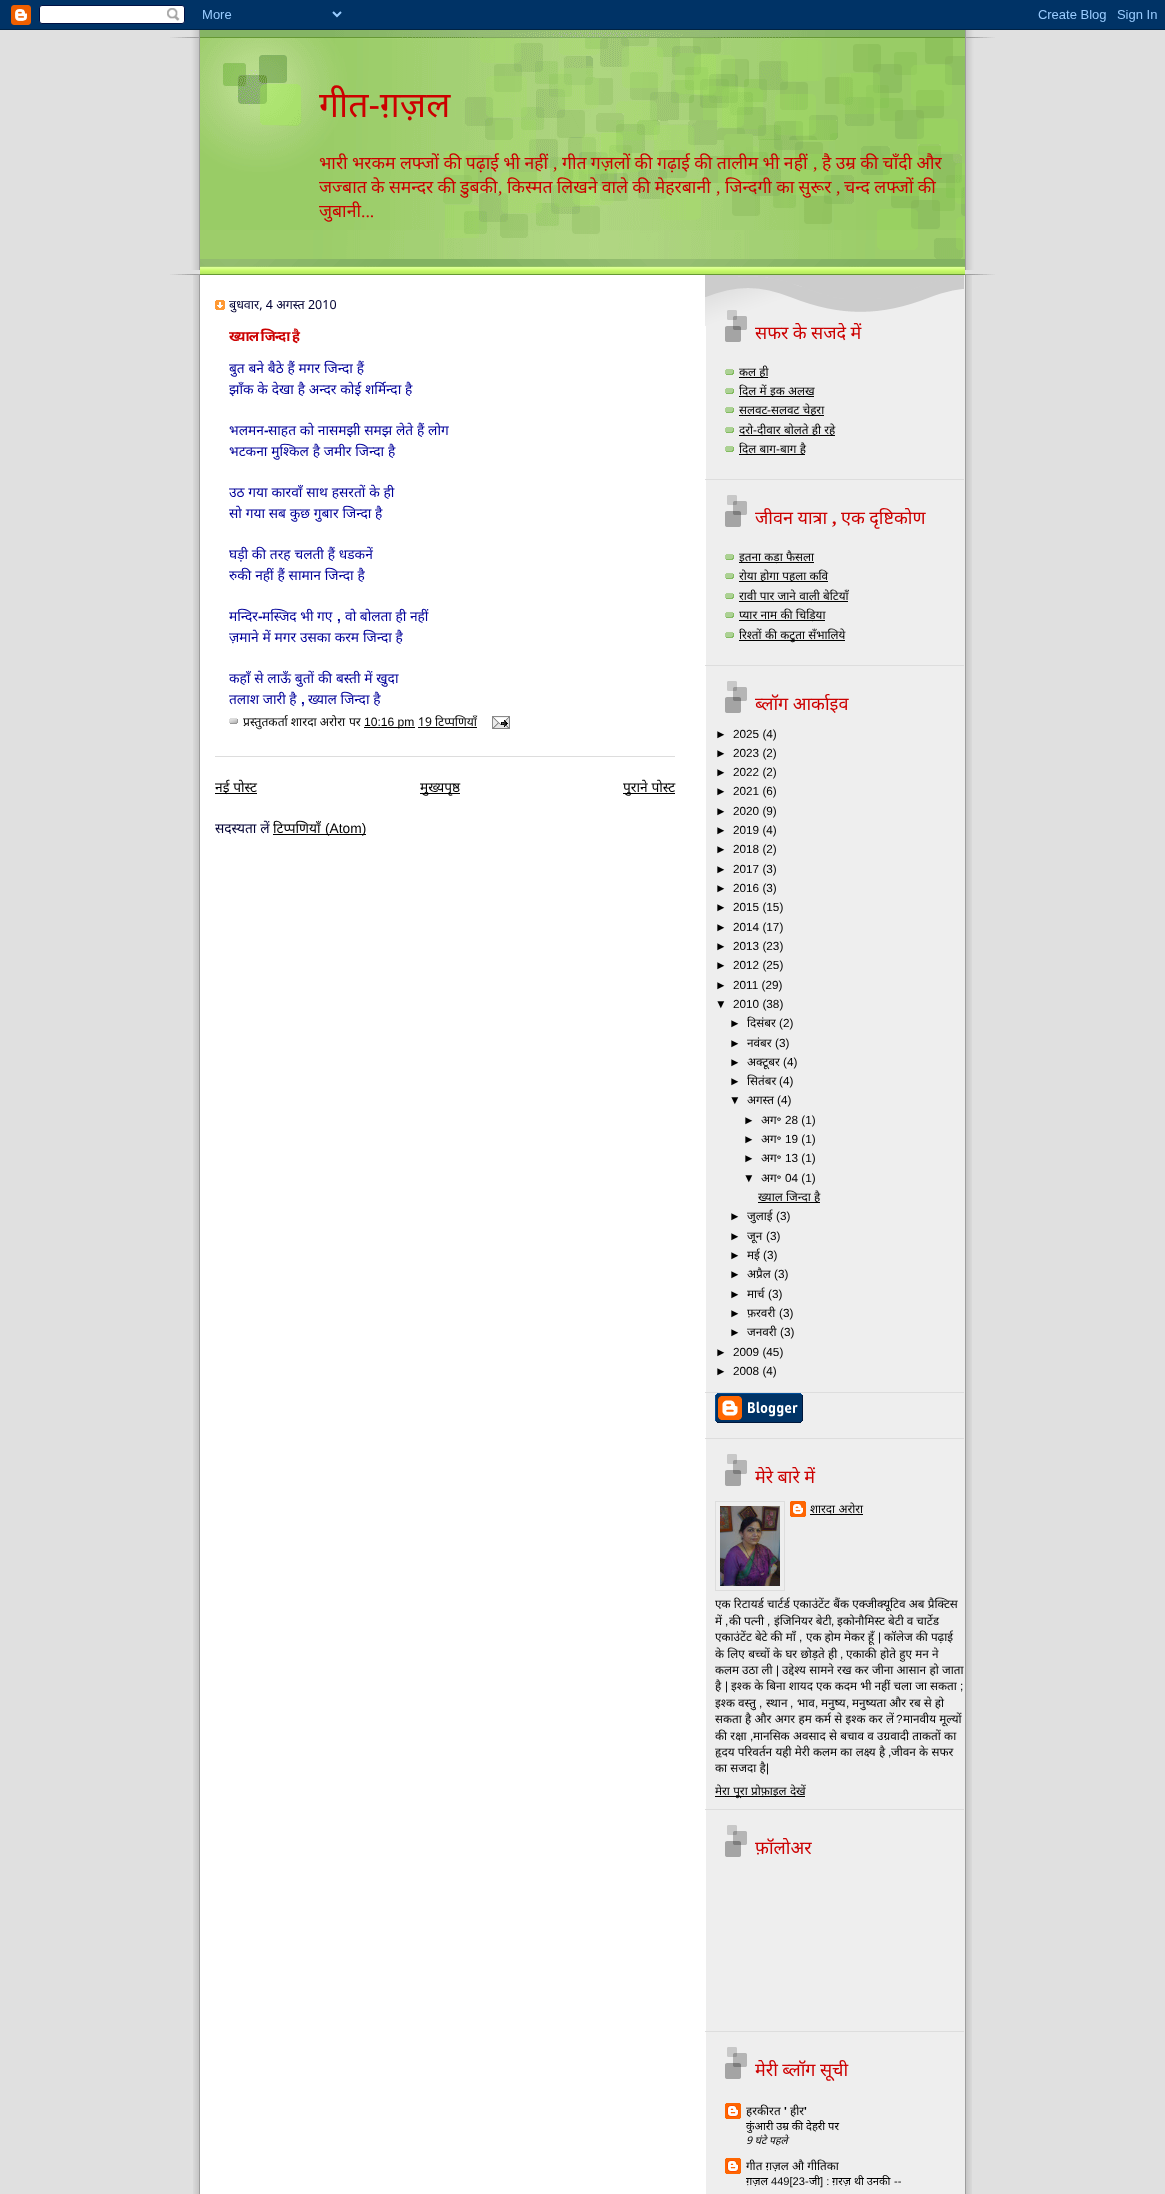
<!DOCTYPE html>
<meta charset="utf-8">
<style>body { margin: 0 } canvas { display: block }</style>
<canvas id="canvas" width="1165" height="2194"></canvas>
<img id="img1" src="img_01.png" hidden>
<img id="img2" src="img_02.png" hidden>
<img id="img3" src="img_03.png" hidden>
<img id="img4" src="img_04.png" hidden>
<img id="img5" src="img_05.png" hidden>
<img id="img6" src="img_06.png" hidden>
<img id="img7" src="img_07.png" hidden>
<img id="img8" src="img_08.png" hidden>
<img id="img9" src="img_09.png" hidden>
<img id="img10" src="img_10.png" hidden>
<img id="img11" src="img_11.png" hidden>
<img id="img12" src="img_12.png" hidden>
<img id="img13" src="img_13.png" hidden>
<img id="img14" src="img_14.png" hidden>
<img id="img15" src="img_15.png" hidden>
<script>
window.onload = function () {
	const canvas = document.getElementById("canvas");
	const ctx = canvas.getContext("2d");
	ctx.miterLimit = 4;
	ctx.fontKerning = "normal";
	function txt(s, x, y) {
		ctx.fillText(s, x, y);
	}
	function fill(x, y, w, h) {
		ctx.fillRect(x, y, w, h);
	}
	function img(id, x, y, w, h) {
		ctx.drawImage(document.getElementById(id), x, y, w, h);
	}

	ctx.fillStyle = "#E0E0E0";
	fill(0, 0, 1165, 2194);
	img("img1", 0, 0, 1165, 30);
	img("img2", 193, 275, 779, 1919);
	img("img3", 170, 30, 825, 240);
	img("img4", 170, 259, 825, 16);
	img("img5", 215, 300, 10, 10);
	ctx.fillStyle = "#DDDDDD";
	fill(215, 756, 460, 1);
	img("img6", 229, 718, 9, 6);
	ctx.fillStyle = "#000000";
	fill(364, 727, 51, 1);
	fill(418, 727, 59, 1);
	img("img7", 492, 716, 18, 13);
	fill(215, 793, 42, 1);
	fill(420, 793, 40, 1);
	fill(623, 793, 52, 1);
	fill(273, 834, 93, 1);
	img("img8", 705, 275, 259, 51);
	ctx.fillStyle = "#DDDDDD";
	fill(705, 479, 259, 1);
	img("img9", 725, 310, 22, 32);
	img("img10", 725, 369, 9, 6);
	ctx.fillStyle = "#000000";
	fill(739, 377, 29, 1);
	img("img10", 725, 388, 9, 6);
	fill(739, 396, 75, 1);
	img("img10", 725, 407, 9, 6);
	fill(739, 415, 85, 1);
	img("img10", 725, 427, 9, 6);
	fill(739, 435, 96, 1);
	img("img10", 725, 446, 9, 6);
	fill(739, 454, 66, 1);
	ctx.fillStyle = "#DDDDDD";
	fill(705, 665, 259, 1);
	img("img11", 725, 495, 22, 32);
	img("img10", 725, 554, 9, 6);
	ctx.fillStyle = "#000000";
	fill(739, 562, 75, 1);
	img("img10", 725, 573, 9, 6);
	fill(739, 581, 89, 1);
	img("img10", 725, 593, 9, 6);
	fill(739, 601, 109, 1);
	img("img10", 725, 612, 9, 6);
	fill(739, 620, 86, 1);
	img("img10", 725, 632, 9, 6);
	fill(739, 640, 106, 1);
	ctx.fillStyle = "#DDDDDD";
	fill(705, 1392, 259, 1);
	img("img11", 725, 681, 22, 32);
	ctx.fillStyle = "#000000";
	fill(758, 1202, 62, 1);
	ctx.fillStyle = "#DDDDDD";
	fill(705, 1438, 259, 1);
	img("img12", 715, 1393, 88, 30);
	fill(705, 1809, 259, 1);
	img("img11", 725, 1454, 22, 32);
	ctx.strokeStyle = "#DDDDDD";
	ctx.strokeRect(715.5, 1501.5, 69, 89);
	img("img13", 720, 1506, 60, 80);
	img("img14", 790, 1501, 16, 16);
	ctx.fillStyle = "#000000";
	fill(810, 1514, 53, 1);
	fill(715, 1796, 90, 1);
	ctx.fillStyle = "#DDDDDD";
	fill(705, 2031, 259, 1);
	img("img11", 725, 1825, 22, 32);
	img("img11", 725, 2047, 22, 32);
	img("img15", 725, 2103, 16, 16);
	img("img15", 725, 2158, 16, 16);
	ctx.font = "35.5px Noto Sans";
	ctx.fillStyle = "#CC0000";
	txt("गीत-ग़ज़ल", 319, 117);
	ctx.wordSpacing = "-0.25px";
	ctx.font = "17.6px Noto Sans";
	txt("भारी भरकम लफ्जों की पढ़ाई भी नहीं", 319, 169);
	ctx.wordSpacing = "0px";
	ctx.font = "17.6px Liberation Serif";
	txt(",", 553, 169);
	ctx.wordSpacing = "-0.25px";
	ctx.font = "17.6px Noto Sans";
	txt("गीत गज़लों की गढ़ाई की तालीम भी नहीं", 562, 169);
	ctx.wordSpacing = "0px";
	ctx.font = "17.6px Liberation Serif";
	txt(",", 813, 169);
	ctx.wordSpacing = "-0.25px";
	ctx.font = "17.6px Noto Sans";
	txt("है उम्र की चाँदी और", 822, 169);
	txt("जज्बात के समन्दर की डुबकी", 319, 193);
	ctx.wordSpacing = "0px";
	ctx.font = "17.6px Liberation Serif";
	txt(",", 498, 193);
	ctx.wordSpacing = "-0.25px";
	ctx.font = "17.6px Noto Sans";
	txt("किस्मत लिखने वाले की मेहरबानी", 507, 193);
	ctx.wordSpacing = "0px";
	ctx.font = "17.6px Liberation Serif";
	txt(",", 716, 193);
	ctx.wordSpacing = "-0.25px";
	ctx.font = "17.6px Noto Sans";
	txt("जिन्दगी का सुरूर", 725, 193);
	ctx.wordSpacing = "0px";
	ctx.font = "17.6px Liberation Serif";
	txt(",", 836, 193);
	ctx.wordSpacing = "-0.25px";
	ctx.font = "17.6px Noto Sans";
	txt("चन्द लफ्जों की", 844, 193);
	ctx.wordSpacing = "0px";
	txt("जुबानी", 319, 217);
	ctx.font = "17.6px Liberation Serif";
	txt("...", 361, 217);
	ctx.font = "12.5px Noto Sans";
	ctx.fillStyle = "#000033";
	txt("बुधवार, 4 अगस्त 2010", 229, 309);
	ctx.letterSpacing = "-1px";
	ctx.font = "bold 14px Noto Sans";
	ctx.fillStyle = "#CC0000";
	txt("ख्याल जिन्दा है", 229, 341);
	ctx.letterSpacing = "0px";
	ctx.wordSpacing = "0.25px";
	ctx.font = "13.75px Noto Sans";
	ctx.fillStyle = "#000099";
	txt("बुत बने बैठे हैं मगर जिन्दा हैं", 229, 373);
	txt("झाँक के देखा है अन्दर कोई शर्मिन्दा है", 229, 394);
	ctx.wordSpacing = "0px";
	txt("भलमन", 229, 435);
	ctx.font = "bold 13.75px Liberation Sans";
	txt("-", 264, 435);
	ctx.wordSpacing = "0.25px";
	ctx.font = "13.75px Noto Sans";
	txt("साहत को नासमझी समझ लेते हैं लोग", 268, 435);
	txt("भटकना मुश्किल है जमीर जिन्दा है", 229, 456);
	txt("उठ गया कारवाँ साथ हसरतों के ही", 229, 497);
	txt("सो गया सब कुछ गुबार जिन्दा है", 229, 518);
	txt("घड़ी की तरह चलती हैं धडकनें", 229, 559);
	txt("रुकी नहीं हैं सामान जिन्दा है", 229, 580);
	ctx.wordSpacing = "0px";
	txt("मन्दिर", 229, 621);
	ctx.font = "bold 13.75px Liberation Sans";
	txt("-", 258, 621);
	ctx.font = "13.75px Noto Sans";
	txt("मस्जिद भी गए", 262, 621);
	txt("वो बोलता ही नहीं", 345, 621);
	ctx.font = "bold 13.75px Liberation Sans";
	txt(",", 337, 621);
	ctx.wordSpacing = "0.25px";
	ctx.font = "13.75px Noto Sans";
	txt("ज़माने में मगर उसका करम जिन्दा है", 229, 642);
	txt("कहाँ से लाऊँ बुतों की बस्ती में खुदा", 229, 683);
	ctx.wordSpacing = "0.1px";
	txt("तलाश जारी है", 229, 704);
	ctx.wordSpacing = "0px";
	ctx.font = "bold 13.75px Liberation Sans";
	txt(",", 301, 704);
	ctx.wordSpacing = "0.1px";
	ctx.font = "13.75px Noto Sans";
	txt("ख्याल जिन्दा है", 308, 704);
	ctx.wordSpacing = "0px";
	ctx.font = "12.1px Noto Sans";
	ctx.fillStyle = "#000000";
	txt("प्रस्तुतकर्ता शारदा अरोरा", 243, 726);
	txt("पर", 349, 726);
	ctx.font = "12.1px Liberation Sans";
	txt("10:16 pm", 364, 726);
	ctx.font = "12.1px Noto Sans";
	txt("19 टिप्पणियाँ", 418, 726);
	ctx.wordSpacing = "0.25px";
	ctx.font = "13.75px Noto Sans";
	txt("नई पोस्ट", 215, 792);
	ctx.wordSpacing = "0px";
	txt("मुख्यपृष्ठ", 420, 792);
	ctx.wordSpacing = "0.25px";
	txt("पुराने पोस्ट", 623, 792);
	ctx.fillStyle = "#000033";
	txt("सदस्यता लें", 215, 833);
	ctx.wordSpacing = "0px";
	ctx.fillStyle = "#000000";
	txt("टिप्पणियाँ", 273, 833);
	ctx.font = "13.75px Liberation Sans";
	txt("(Atom)", 325, 833);
	ctx.wordSpacing = "-0.25px";
	ctx.font = "18px Noto Sans";
	ctx.fillStyle = "#CC0000";
	txt("सफर के सजदे में", 755, 339);
	ctx.wordSpacing = "0.25px";
	ctx.font = "11.75px Noto Sans";
	ctx.fillStyle = "#000000";
	txt("कल ही", 739, 376);
	txt("दिल में इक अलख", 739, 395);
	ctx.wordSpacing = "0px";
	txt("सलवट", 739, 414);
	ctx.font = "11.75px Liberation Sans";
	txt("-", 767, 414);
	ctx.wordSpacing = "0.25px";
	ctx.font = "11.75px Noto Sans";
	txt("सलवट चेहरा", 771, 414);
	ctx.wordSpacing = "0px";
	txt("दरो", 739, 434);
	ctx.font = "11.75px Liberation Sans";
	txt("-", 753, 434);
	ctx.wordSpacing = "0.25px";
	ctx.font = "11.75px Noto Sans";
	txt("दीवार बोलते ही रहे", 757, 434);
	txt("दिल बाग", 739, 453);
	ctx.wordSpacing = "0px";
	ctx.font = "11.75px Liberation Sans";
	txt("-", 776, 453);
	ctx.wordSpacing = "0.25px";
	ctx.font = "11.75px Noto Sans";
	txt("बाग है", 780, 453);
	ctx.wordSpacing = "-0.25px";
	ctx.font = "18px Noto Sans";
	ctx.fillStyle = "#CC0000";
	txt("जीवन यात्रा", 755, 524);
	ctx.wordSpacing = "0px";
	ctx.font = "bold 18px Liberation Serif";
	txt(",", 832, 524);
	ctx.wordSpacing = "-0.25px";
	ctx.font = "18px Noto Sans";
	txt("एक दृष्टिकोण", 841, 524);
	ctx.wordSpacing = "0.25px";
	ctx.font = "11.75px Noto Sans";
	ctx.fillStyle = "#000000";
	txt("इतना कड़ा फैसला", 739, 561);
	txt("रोया होगा पहला कवि", 739, 580);
	txt("रावी पार जाने वाली बेटियाँ", 739, 600);
	txt("प्यार नाम की चिड़िया", 739, 619);
	txt("रिश्तों की कटुता सँभालिये", 739, 639);
	ctx.wordSpacing = "-0.25px";
	ctx.font = "18px Noto Sans";
	ctx.fillStyle = "#CC0000";
	txt("ब्लॉग आर्काइव", 755, 710);
	ctx.wordSpacing = "0px";
	ctx.font = "11.75px Liberation Sans";
	ctx.fillStyle = "#000000";
	txt("►", 715, 738);
	txt("2025 (4)", 733, 738);
	txt("►", 715, 757);
	txt("2023 (2)", 733, 757);
	txt("►", 715, 776);
	txt("2022 (2)", 733, 776);
	txt("►", 715, 795);
	txt("2021 (6)", 733, 795);
	txt("►", 715, 815);
	txt("2020 (9)", 733, 815);
	txt("►", 715, 834);
	txt("2019 (4)", 733, 834);
	txt("►", 715, 853);
	txt("2018 (2)", 733, 853);
	txt("►", 715, 873);
	txt("2017 (3)", 733, 873);
	txt("►", 715, 892);
	txt("2016 (3)", 733, 892);
	txt("►", 715, 911);
	txt("2015 (15)", 733, 911);
	txt("►", 715, 931);
	txt("2014 (17)", 733, 931);
	txt("►", 715, 950);
	txt("2013 (23)", 733, 950);
	txt("►", 715, 969);
	txt("2012 (25)", 733, 969);
	txt("►", 715, 989);
	txt("2011 (29)", 733, 989);
	txt("▼", 715, 1008);
	txt("2010 (38)", 733, 1008);
	txt("►", 729, 1027);
	ctx.font = "11.75px Noto Sans";
	txt("दिसंबर", 747, 1027);
	ctx.font = "11.75px Liberation Sans";
	txt("(2)", 779, 1027);
	txt("►", 729, 1047);
	ctx.font = "11.75px Noto Sans";
	txt("नवंबर", 747, 1047);
	ctx.font = "11.75px Liberation Sans";
	txt("(3)", 775, 1047);
	txt("►", 729, 1066);
	ctx.font = "11.75px Noto Sans";
	txt("अक्टूबर", 747, 1066);
	ctx.font = "11.75px Liberation Sans";
	txt("(4)", 783, 1066);
	txt("►", 729, 1085);
	ctx.font = "11.75px Noto Sans";
	txt("सितंबर", 747, 1085);
	ctx.font = "11.75px Liberation Sans";
	txt("(4)", 779, 1085);
	txt("▼", 729, 1104);
	ctx.font = "11.75px Noto Sans";
	txt("अगस्त", 747, 1104);
	ctx.font = "11.75px Liberation Sans";
	txt("(4)", 777, 1104);
	txt("►", 743, 1124);
	ctx.font = "11.75px Noto Sans";
	txt("अग॰", 761, 1124);
	ctx.font = "11.75px Liberation Sans";
	txt("28 (1)", 785, 1124);
	txt("►", 743, 1143);
	ctx.font = "11.75px Noto Sans";
	txt("अग॰", 761, 1143);
	ctx.font = "11.75px Liberation Sans";
	txt("19 (1)", 785, 1143);
	txt("►", 743, 1162);
	ctx.font = "11.75px Noto Sans";
	txt("अग॰", 761, 1162);
	ctx.font = "11.75px Liberation Sans";
	txt("13 (1)", 785, 1162);
	txt("▼", 743, 1182);
	ctx.font = "11.75px Noto Sans";
	txt("अग॰", 761, 1182);
	ctx.font = "11.75px Liberation Sans";
	txt("04 (1)", 785, 1182);
	ctx.wordSpacing = "0.25px";
	ctx.font = "11.75px Noto Sans";
	txt("ख्याल जिन्दा है", 758, 1201);
	ctx.wordSpacing = "0px";
	ctx.font = "11.75px Liberation Sans";
	txt("►", 729, 1220);
	ctx.font = "11.75px Noto Sans";
	txt("जुलाई", 747, 1220);
	ctx.font = "11.75px Liberation Sans";
	txt("(3)", 776, 1220);
	txt("►", 729, 1240);
	ctx.font = "11.75px Noto Sans";
	txt("जून", 747, 1240);
	ctx.font = "11.75px Liberation Sans";
	txt("(3)", 766, 1240);
	txt("►", 729, 1259);
	ctx.font = "11.75px Noto Sans";
	txt("मई", 747, 1259);
	ctx.font = "11.75px Liberation Sans";
	txt("(3)", 763, 1259);
	txt("►", 729, 1278);
	ctx.font = "11.75px Noto Sans";
	txt("अप्रैल", 747, 1278);
	ctx.font = "11.75px Liberation Sans";
	txt("(3)", 774, 1278);
	txt("►", 729, 1298);
	ctx.font = "11.75px Noto Sans";
	txt("मार्च", 747, 1298);
	ctx.font = "11.75px Liberation Sans";
	txt("(3)", 768, 1298);
	txt("►", 729, 1317);
	ctx.font = "11.75px Noto Sans";
	txt("फ़रवरी", 747, 1317);
	ctx.font = "11.75px Liberation Sans";
	txt("(3)", 779, 1317);
	txt("►", 729, 1336);
	ctx.font = "11.75px Noto Sans";
	txt("जनवरी", 747, 1336);
	ctx.font = "11.75px Liberation Sans";
	txt("(3)", 780, 1336);
	txt("►", 715, 1356);
	txt("2009 (45)", 733, 1356);
	txt("►", 715, 1375);
	txt("2008 (4)", 733, 1375);
	ctx.wordSpacing = "-0.25px";
	ctx.font = "18px Noto Sans";
	ctx.fillStyle = "#CC0000";
	txt("मेरे बारे में", 755, 1483);
	ctx.wordSpacing = "0.25px";
	ctx.font = "11.75px Noto Sans";
	ctx.fillStyle = "#000000";
	txt("शारदा अरोरा", 810, 1513);
	txt("एक रिटायर्ड चार्टर्ड एकाउंटेंट बैंक एक्जीक्यूटिव अब प्रैक्टिस", 715, 1608);
	ctx.wordSpacing = "0px";
	txt("में", 715, 1625);
	txt("इंजिनियर बेटी", 774, 1625);
	txt("इकोनौमिस्ट बेटी व चार्टेड", 837, 1625);
	ctx.font = "11.75px Liberation Sans";
	txt(",", 725, 1625);
	ctx.font = "11.75px Noto Sans";
	txt("की पत्नी", 729, 1625);
	ctx.font = "11.75px Liberation Sans";
	txt(",", 767, 1625);
	txt(",", 831, 1625);
	ctx.font = "11.75px Noto Sans";
	txt("एकाउंटेंट बेटे की माँ", 715, 1641);
	ctx.font = "11.75px Liberation Sans";
	txt(",", 799, 1641);
	ctx.font = "11.75px Noto Sans";
	txt("एक होम मेकर हूँ", 806, 1641);
	ctx.font = "11.75px Liberation Sans";
	txt("|", 878, 1641);
	ctx.font = "11.75px Noto Sans";
	txt("कॉलेज की पढ़ाई", 884, 1641);
	ctx.wordSpacing = "0.25px";
	txt("के लिए बच्चों के घर छोड़ते ही", 715, 1658);
	ctx.wordSpacing = "0px";
	ctx.font = "11.75px Liberation Sans";
	txt(",", 840, 1658);
	ctx.wordSpacing = "0.25px";
	ctx.font = "11.75px Noto Sans";
	txt("एकाकी होते हुए मन ने", 846, 1658);
	ctx.wordSpacing = "0px";
	txt("कलम उठा ली", 715, 1674);
	ctx.font = "11.75px Liberation Sans";
	txt("|", 776, 1674);
	ctx.wordSpacing = "0.25px";
	ctx.font = "11.75px Noto Sans";
	txt("उद्देश्य सामने रख कर जीना आसान हो जाता", 782, 1674);
	ctx.wordSpacing = "0px";
	txt("है", 715, 1690);
	ctx.font = "11.75px Liberation Sans";
	txt("|", 725, 1690);
	ctx.wordSpacing = "0.1px";
	ctx.font = "11.75px Noto Sans";
	txt("इश्क के बिना शायद एक कदम भी नहीं चला जा सकता", 731, 1690);
	ctx.wordSpacing = "0px";
	ctx.font = "11.75px Liberation Sans";
	txt(";", 960, 1690);
	ctx.font = "11.75px Noto Sans";
	txt("इश्क वस्तु", 715, 1707);
	ctx.font = "11.75px Liberation Sans";
	txt(",", 759, 1707);
	ctx.font = "11.75px Noto Sans";
	txt("स्थान", 766, 1707);
	ctx.font = "11.75px Liberation Sans";
	txt(",", 790, 1707);
	ctx.font = "11.75px Noto Sans";
	txt("भाव", 797, 1707);
	ctx.font = "11.75px Liberation Sans";
	txt(",", 815, 1707);
	ctx.font = "11.75px Noto Sans";
	txt("मनुष्य", 821, 1707);
	ctx.font = "11.75px Liberation Sans";
	txt(",", 846, 1707);
	ctx.font = "11.75px Noto Sans";
	txt("मनुष्यता और रब से हो", 852, 1707);
	ctx.wordSpacing = "0.25px";
	txt("सकता है और अगर हम कर्म से इश्क कर लें", 715, 1723);
	ctx.wordSpacing = "0px";
	ctx.font = "11.75px Liberation Sans";
	txt("?", 896, 1723);
	ctx.wordSpacing = "0.25px";
	ctx.font = "11.75px Noto Sans";
	txt("मानवीय मूल्यों", 903, 1723);
	txt("की रक्षा", 715, 1740);
	ctx.wordSpacing = "0px";
	ctx.font = "11.75px Liberation Sans";
	txt(",", 750, 1740);
	ctx.wordSpacing = "0.25px";
	ctx.font = "11.75px Noto Sans";
	txt("मानसिक अवसाद से बचाव व उग्रवादी ताकतों का", 753, 1740);
	txt("हृदय परिवर्तन यही मेरी कलम का लक्ष्य है", 715, 1756);
	ctx.wordSpacing = "0px";
	ctx.font = "11.75px Liberation Sans";
	txt(",", 888, 1756);
	ctx.wordSpacing = "0.25px";
	ctx.font = "11.75px Noto Sans";
	txt("जीवन के सफर", 891, 1756);
	txt("का सजदा है", 715, 1772);
	ctx.wordSpacing = "0px";
	ctx.font = "11.75px Liberation Sans";
	txt("|", 766, 1772);
	ctx.wordSpacing = "0.25px";
	ctx.font = "11.75px Noto Sans";
	txt("मेरा पूरा प्रोफ़ाइल देखें", 715, 1795);
	ctx.wordSpacing = "0px";
	ctx.font = "18px Noto Sans";
	ctx.fillStyle = "#CC0000";
	txt("फ़ॉलोअर", 755, 1854);
	ctx.wordSpacing = "-0.25px";
	txt("मेरी ब्लॉग सूची", 755, 2076);
	ctx.wordSpacing = "0px";
	ctx.font = "11.75px Noto Sans";
	ctx.fillStyle = "#000000";
	txt("हरकीरत", 746, 2115);
	ctx.font = "bold 11.75px Liberation Sans";
	txt("'", 784, 2115);
	ctx.font = "11.75px Noto Sans";
	txt("हीर", 790, 2115);
	ctx.font = "bold 11.75px Liberation Sans";
	txt("'", 804, 2115);
	ctx.font = "11.1px Noto Sans";
	txt("कुंआरी उम्र की देहरी पर", 746, 2130);
	ctx.font = "italic 10.5px Noto Sans";
	txt("9 घंटे पहले", 746, 2144);
	ctx.font = "11.75px Noto Sans";
	txt("गीत ग़ज़ल", 746, 2170);
	ctx.wordSpacing = "0.25px";
	txt("औ गीतिका", 792, 2170);
	ctx.wordSpacing = "0px";
	ctx.font = "11.1px Noto Sans";
	txt("ग़ज़ल", 746, 2185);
	ctx.font = "11.1px Liberation Sans";
	txt("449[23-", 771, 2185);
	ctx.font = "11.1px Noto Sans";
	txt("जी", 809, 2185);
	ctx.font = "11.1px Liberation Sans";
	txt("] :", 820, 2185);
	ctx.font = "11.1px Noto Sans";
	txt("ग़रज़ थी उनकी", 832, 2185);
	ctx.font = "11.1px Liberation Sans";
	txt("--", 894, 2185);
};
</script>
